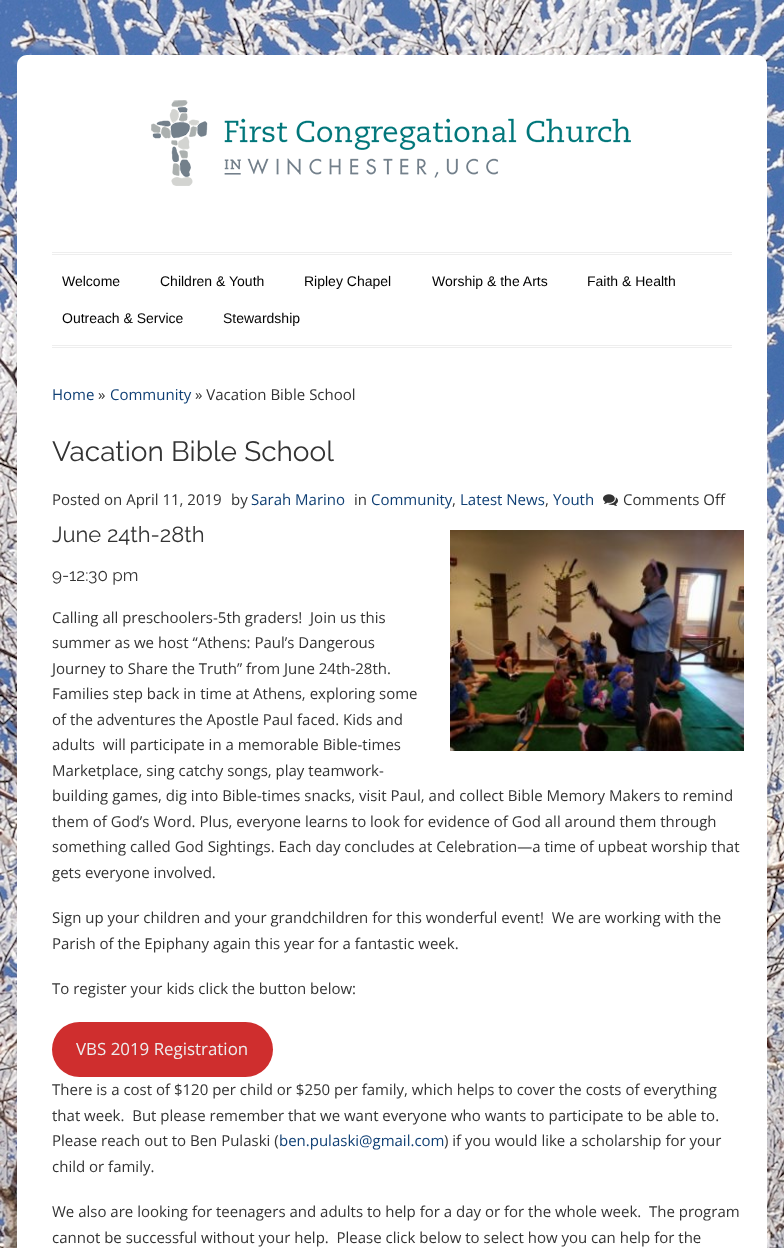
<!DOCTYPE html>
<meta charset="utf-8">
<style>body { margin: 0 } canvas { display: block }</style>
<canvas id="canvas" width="784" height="1248"></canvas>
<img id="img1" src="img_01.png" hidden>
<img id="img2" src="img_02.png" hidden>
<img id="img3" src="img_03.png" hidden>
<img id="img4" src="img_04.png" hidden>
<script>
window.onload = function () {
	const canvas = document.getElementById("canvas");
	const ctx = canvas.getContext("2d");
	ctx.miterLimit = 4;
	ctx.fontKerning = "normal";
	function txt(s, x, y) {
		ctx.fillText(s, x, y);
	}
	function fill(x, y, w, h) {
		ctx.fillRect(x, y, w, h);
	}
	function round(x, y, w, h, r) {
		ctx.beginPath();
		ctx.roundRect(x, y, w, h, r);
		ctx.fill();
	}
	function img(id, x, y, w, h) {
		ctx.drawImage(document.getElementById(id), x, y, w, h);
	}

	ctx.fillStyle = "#FFFFFF";
	fill(0, 0, 784, 1248);
	img("img1", 0, 0, 784, 1248);
	ctx.beginPath();
	ctx.moveTo(27, 55);
	ctx.lineTo(757, 55);
	ctx.bezierCurveTo(762.5, 55, 767, 59.5, 767, 65);
	ctx.lineTo(767, 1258);
	ctx.lineTo(17, 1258);
	ctx.lineTo(17, 65);
	ctx.bezierCurveTo(17, 59.5, 21.5, 55, 27, 55);
	ctx.closePath();
	ctx.fill();
	img("img2", 151, 100, 480, 86);
	ctx.fillStyle = "#EEEEEE";
	fill(52, 252, 680, 1);
	fill(52, 254, 680, 1);
	fill(52, 345, 680, 1);
	fill(52, 347, 680, 1);
	img("img3", 603, 494, 15, 12);
	img("img4", 450, 530, 294, 221);
	ctx.fillStyle = "#CF2E2E";
	round(52, 1022, 221, 55, 27.5);
	ctx.font = "14px Liberation Sans";
	ctx.fillStyle = "#000000";
	txt("Welcome", 62, 286);
	txt("Children & Youth", 160, 286);
	txt("Ripley Chapel", 304, 286);
	txt("Worship & the Arts", 432, 286);
	txt("Faith & Health", 587, 286);
	txt("Outreach & Service", 62, 323);
	txt("Stewardship", 223, 323);
	ctx.font = "15px Open Sans";
	ctx.fillStyle = "#0F3F74";
	txt("Home", 52, 400);
	ctx.fillStyle = "#333333";
	txt("»", 98, 400);
	ctx.fillStyle = "#0F3F74";
	txt("Community", 110, 400);
	ctx.fillStyle = "#333333";
	txt("» Vacation Bible School", 195, 400);
	ctx.font = "28px Raleway";
	txt("Vacation Bible School", 52, 461);
	ctx.font = "15px Open Sans";
	txt("Posted on April 11, 2019", 52, 505);
	txt("by", 231, 505);
	ctx.fillStyle = "#0F3F74";
	txt("Sarah Marino", 251, 505);
	ctx.fillStyle = "#333333";
	txt("in", 354, 505);
	ctx.fillStyle = "#0F3F74";
	txt("Community", 371, 505);
	ctx.fillStyle = "#333333";
	txt(",", 452, 505);
	ctx.fillStyle = "#0F3F74";
	txt("Latest News", 460, 505);
	ctx.fillStyle = "#333333";
	txt(",", 545, 505);
	ctx.fillStyle = "#0F3F74";
	txt("Youth", 553, 505);
	ctx.fillStyle = "#333333";
	txt("Comments Off", 623, 505);
	ctx.font = "22px Raleway";
	txt("June 24th-28th", 52, 542);
	ctx.font = "17px Raleway";
	txt("9-12:30 pm", 52, 581);
	ctx.font = "15px Open Sans";
	txt("Calling all preschoolers-5th graders!  Join us this", 52, 623);
	txt("summer as we host “Athens: Paul’s Dangerous", 52, 648);
	txt("Journey to Share the Truth” from June 24th-28th.", 52, 674);
	txt("Families step back in time at Athens, exploring some", 52, 699);
	txt("of the adventures the Apostle Paul faced. Kids and", 52, 725);
	txt("adults  will participate in a memorable Bible-times", 52, 750);
	txt("Marketplace, sing catchy songs, play teamwork-", 52, 776);
	txt("building games, dig into Bible-times snacks, visit Paul, and collect Bible Memory Makers to remind", 52, 801);
	txt("them of God’s Word. Plus, everyone learns to look for evidence of God all around them through", 52, 827);
	txt("something called God Sightings. Each day concludes at Celebration—a time of upbeat worship that", 52, 852);
	txt("gets everyone involved.", 52, 878);
	txt("Sign up your children and your grandchildren for this wonderful event!  We are working with the", 52, 923);
	txt("Parish of the Epiphany again this year for a fantastic week.", 52, 949);
	txt("To register your kids click the button below:", 52, 994);
	ctx.font = "16.9px Open Sans";
	ctx.fillStyle = "#EEEEEE";
	txt("VBS 2019 Registration", 76, 1055);
	ctx.font = "15px Open Sans";
	ctx.fillStyle = "#333333";
	txt("There is a cost of $120 per child or $250 per family, which helps to cover the costs of everything", 52, 1095);
	txt("that week.  But please remember that we want everyone who wants to participate to be able to.", 52, 1121);
	txt("Please reach out to Ben Pulaski (", 52, 1146);
	ctx.fillStyle = "#0F3F74";
	txt("ben.pulaski@gmail.com", 279, 1146);
	ctx.fillStyle = "#333333";
	txt(") if you would like a scholarship for your", 444, 1146);
	txt("child or family.", 52, 1172);
	txt("We also are looking for teenagers and adults to help for a day or for the whole week.  The program", 52, 1217);
	txt("cannot be successful without your help.  Please click below to select how you can help for the", 52, 1243);
};
</script>
